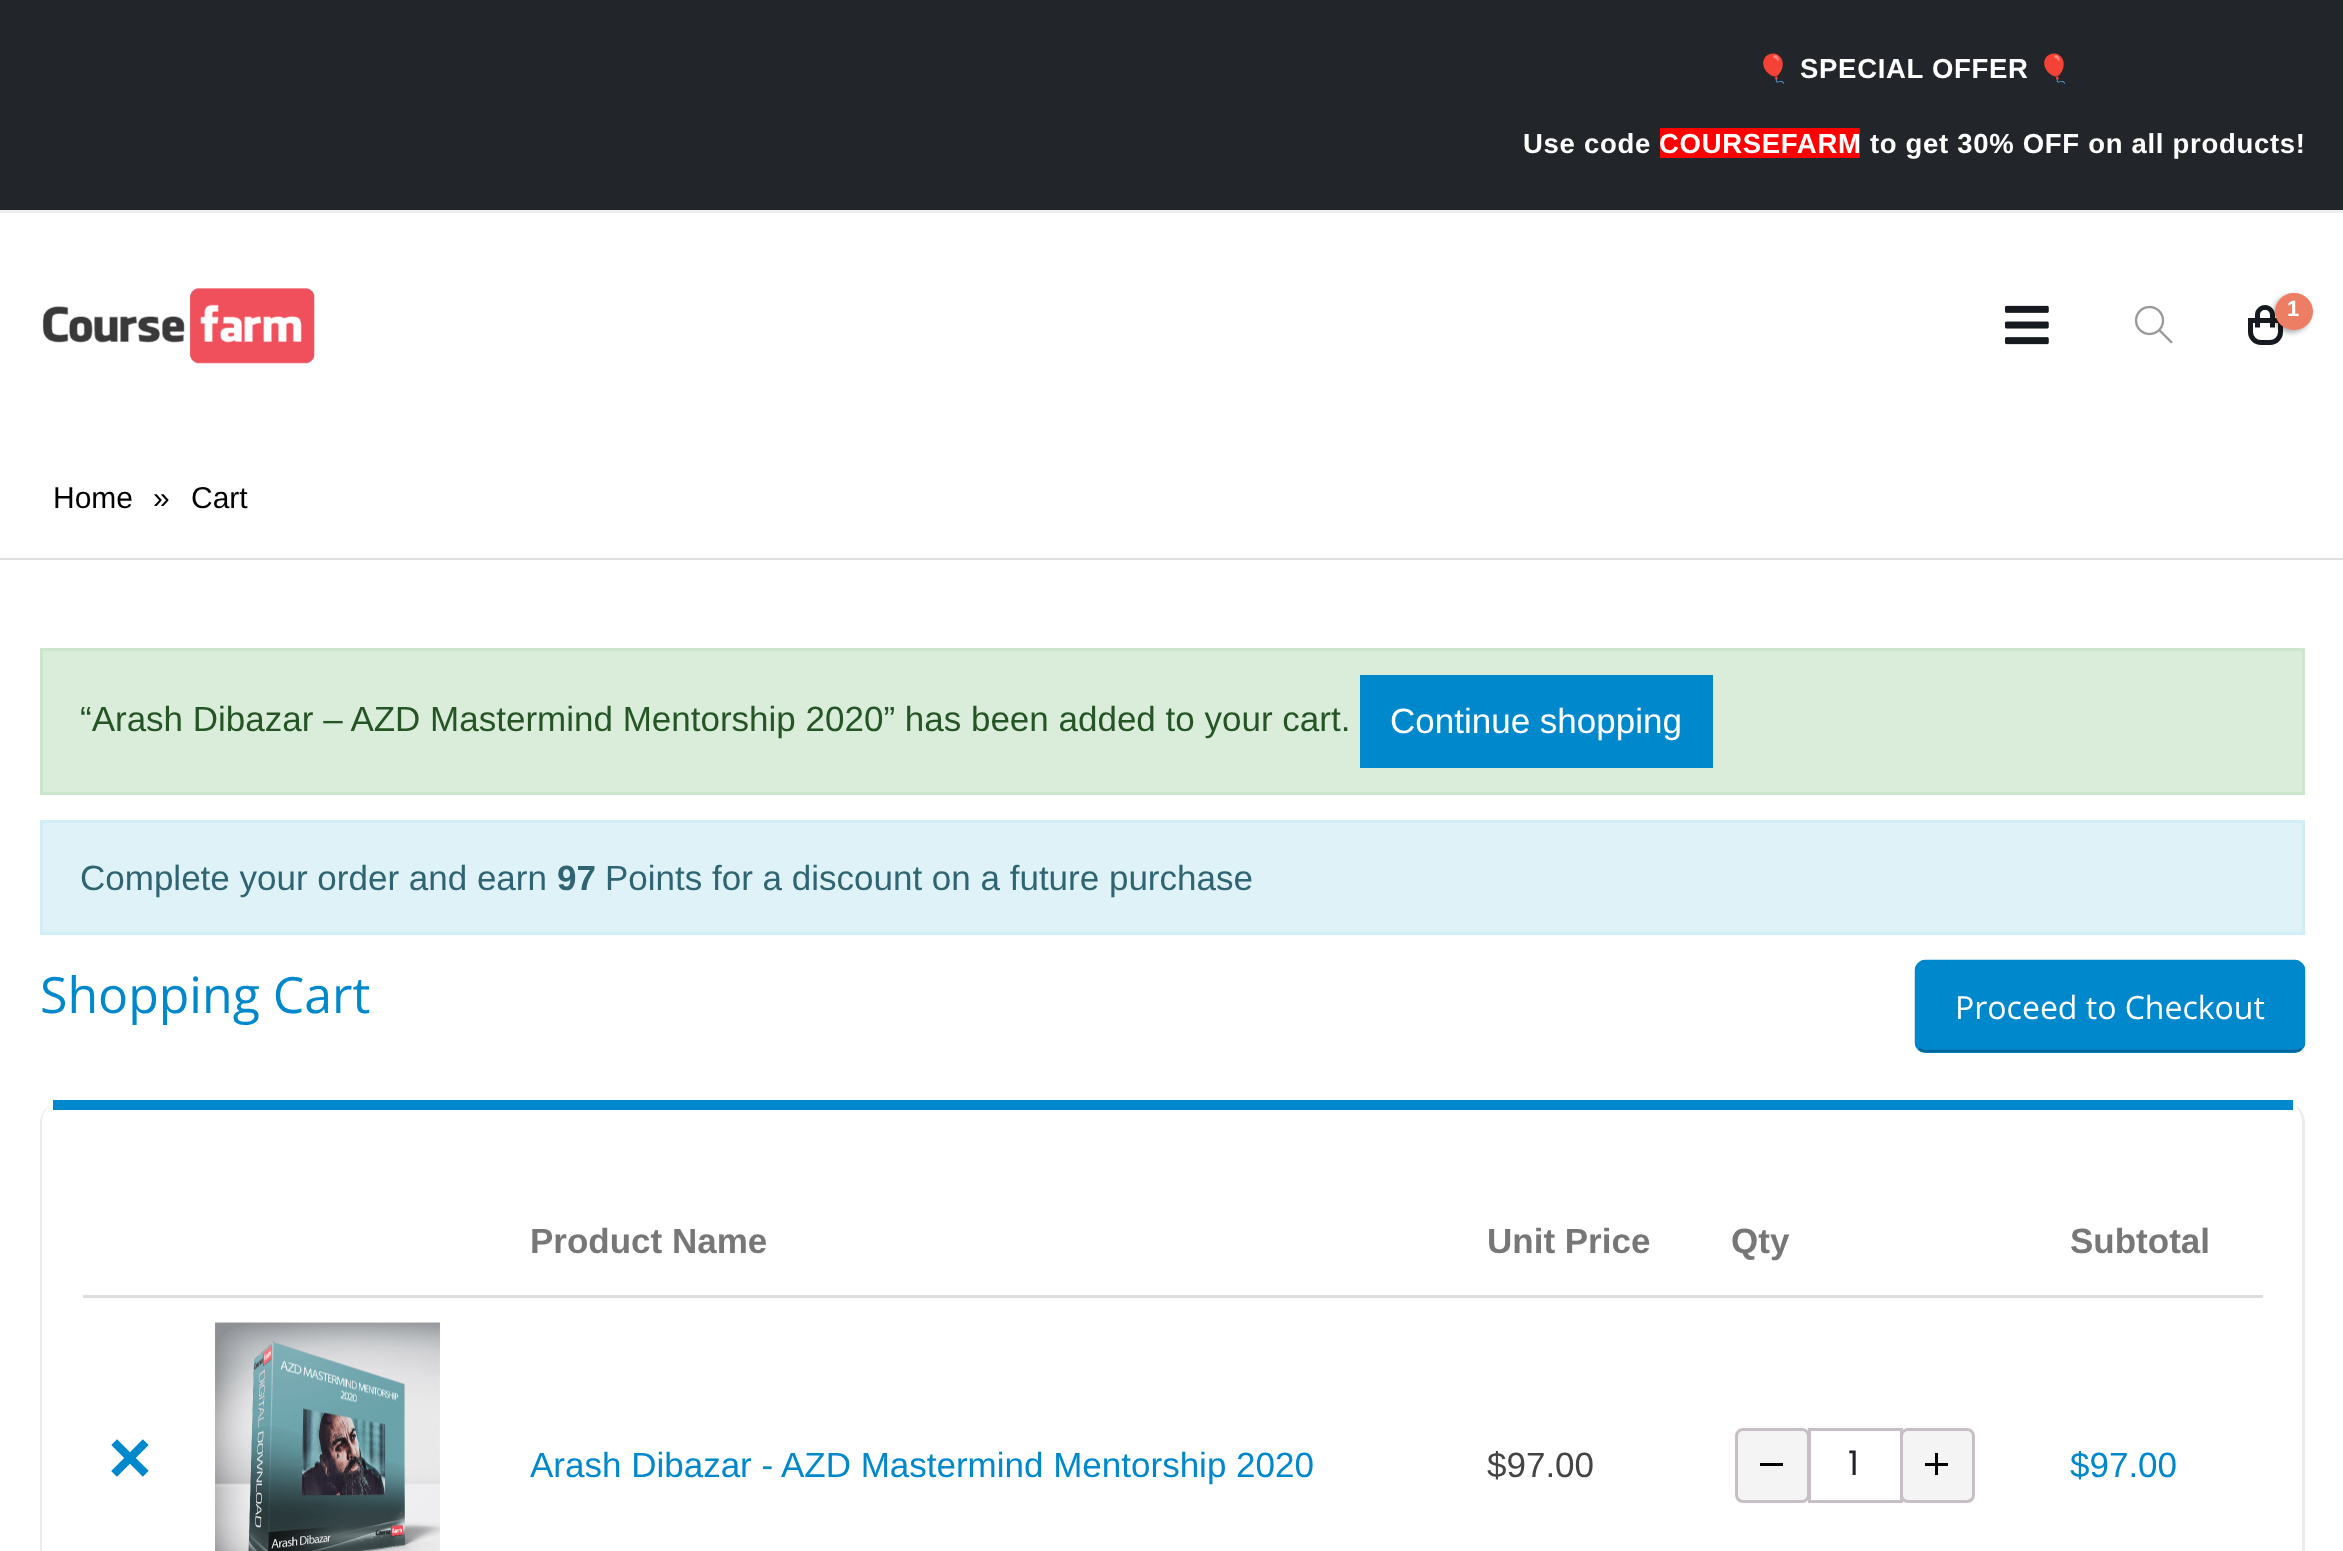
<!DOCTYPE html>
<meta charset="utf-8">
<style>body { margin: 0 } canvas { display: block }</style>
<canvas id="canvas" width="2343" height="1551"></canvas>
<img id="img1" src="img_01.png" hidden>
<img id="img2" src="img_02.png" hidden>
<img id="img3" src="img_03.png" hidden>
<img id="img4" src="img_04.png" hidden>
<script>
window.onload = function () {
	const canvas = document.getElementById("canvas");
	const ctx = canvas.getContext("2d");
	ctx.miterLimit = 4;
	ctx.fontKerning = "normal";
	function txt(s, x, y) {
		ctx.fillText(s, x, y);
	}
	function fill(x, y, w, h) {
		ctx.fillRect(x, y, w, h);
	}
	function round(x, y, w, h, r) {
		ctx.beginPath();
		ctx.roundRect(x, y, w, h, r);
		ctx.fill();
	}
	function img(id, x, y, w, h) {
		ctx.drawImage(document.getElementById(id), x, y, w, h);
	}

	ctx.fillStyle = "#FFFFFF";
	fill(0, 0, 2343, 1551);
	ctx.fillStyle = "#222529";
	fill(0, 0, 2343, 210);
	ctx.fillStyle = "#EEEEEE";
	fill(0, 210, 2343, 3);
	ctx.fillStyle = "#FF0000";
	fill(1660, 128, 200, 30);
	img("img1", 42, 288, 273, 76);
	img("img2", 2005, 305, 44, 40);
	img("img3", 2134, 305, 39, 39);
	ctx.beginPath();
	ctx.roundRect(2250.5, 320.5, 30, 22, [0, 0, 10.5, 10.5]);
	ctx.strokeStyle = "#141A1F";
	ctx.lineWidth = 5;
	ctx.stroke();
	ctx.fillStyle = "#141A1F";
	ctx.beginPath();
	ctx.moveTo(2265, 305);
	ctx.bezierCurveTo(2270.5, 305, 2275, 309.5, 2275, 315);
	ctx.lineTo(2275, 327.5);
	ctx.lineTo(2255, 327.5);
	ctx.lineTo(2255, 315);
	ctx.bezierCurveTo(2255, 309.5, 2259.5, 305, 2265, 305);
	ctx.closePath();
	ctx.moveTo(2265, 310);
	ctx.bezierCurveTo(2268, 310, 2270, 312, 2270, 315);
	ctx.lineTo(2270, 327.5);
	ctx.lineTo(2260, 327.5);
	ctx.lineTo(2260, 315);
	ctx.bezierCurveTo(2260, 312, 2262, 310, 2265, 310);
	ctx.closePath();
	ctx.fill("evenodd");
	ctx.fillStyle = "rgba(0, 0, 0, 0.3)";
	ctx.filter = "blur(2.5px)";
	ctx.beginPath();
	ctx.roundRect(2273, 295, 37, 38, 18.5);
	ctx.fill();
	ctx.filter = "none";
	ctx.fillStyle = "#ED7E63";
	round(2275, 293, 38, 37, 18.5);
	ctx.fillStyle = "#DFDFDF";
	fill(0, 558, 2343, 2);
	ctx.fillStyle = "#DAEDDA";
	ctx.beginPath();
	ctx.rect(41.5, 649.5, 2262, 144);
	ctx.fill();
	ctx.strokeStyle = "#CBE6CB";
	ctx.lineWidth = 3;
	ctx.stroke();
	ctx.fillStyle = "#0088CC";
	fill(1360, 675, 353, 93);
	ctx.fillStyle = "#DEF2F8";
	ctx.beginPath();
	ctx.rect(41.5, 821.5, 2262, 112);
	ctx.fill();
	ctx.strokeStyle = "#D1EDF6";
	ctx.stroke();
	ctx.fillStyle = "#0088CC";
	round(1915, 960, 390, 93, 10);
	ctx.beginPath();
	ctx.moveTo(2301, 1048.5);
	ctx.bezierCurveTo(2299.5, 1050.5, 2297.5, 1051, 2295, 1051);
	ctx.lineTo(1925, 1051);
	ctx.bezierCurveTo(1922.5, 1051, 1920.5, 1050.5, 1919, 1048.5);
	ctx.strokeStyle = "#006699";
	ctx.lineWidth = 2.5;
	ctx.stroke();
	ctx.beginPath();
	ctx.moveTo(1919, 1048.5);
	ctx.bezierCurveTo(1917, 1047, 1916, 1045, 1916, 1042.5);
	ctx.lineTo(1916, 970);
	ctx.bezierCurveTo(1916, 967.5, 1917, 965.5, 1919, 964);
	ctx.bezierCurveTo(1920.5, 962, 1922.5, 961, 1925, 961);
	ctx.lineTo(2295, 961);
	ctx.bezierCurveTo(2297.5, 961, 2299.5, 962, 2301, 964);
	ctx.bezierCurveTo(2303, 965.5, 2304, 967.5, 2304, 970);
	ctx.lineTo(2304, 1042.5);
	ctx.bezierCurveTo(2304, 1045, 2303, 1047, 2301, 1048.5);
	ctx.strokeStyle = "#0088CC";
	ctx.stroke();
	ctx.fillStyle = "#ECECEC";
	ctx.beginPath();
	ctx.moveTo(2297, 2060);
	ctx.bezierCurveTo(2300, 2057, 2302, 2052, 2302, 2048);
	ctx.lineTo(2302, 1122);
	ctx.bezierCurveTo(2302, 1113, 2297, 1105, 2289, 1102);
	ctx.bezierCurveTo(2298, 1105, 2305, 1113, 2305, 1122);
	ctx.lineTo(2305, 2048);
	ctx.bezierCurveTo(2305, 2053, 2303, 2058, 2299, 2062);
	ctx.closePath();
	ctx.fill();
	ctx.beginPath();
	ctx.moveTo(56, 1102);
	ctx.bezierCurveTo(48, 1105, 42, 1113, 42, 1122);
	ctx.lineTo(42, 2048);
	ctx.bezierCurveTo(42, 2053, 44, 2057, 47, 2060);
	ctx.lineTo(46, 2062);
	ctx.bezierCurveTo(42, 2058, 40, 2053, 40, 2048);
	ctx.lineTo(40, 1122);
	ctx.bezierCurveTo(40, 1113, 47, 1105, 56, 1102);
	ctx.closePath();
	ctx.fill();
	ctx.fillStyle = "#0088CC";
	fill(53, 1100, 2240, 10);
	ctx.fillStyle = "#DDDDDD";
	fill(83, 1295, 2180, 3);
	img("img4", 215, 1322, 225, 229);
	ctx.strokeStyle = "#C8BFC6";
	ctx.lineWidth = 3;
	ctx.strokeRect(1809.5, 1429.5, 92, 72);
	ctx.fillStyle = "#F4F4F4";
	ctx.beginPath();
	ctx.roundRect(1736.5, 1429.5, 72, 72, 6.5);
	ctx.fill();
	ctx.stroke();
	ctx.fillStyle = "#000000";
	fill(1760, 1463, 23, 3);
	ctx.fillStyle = "#F4F4F4";
	ctx.beginPath();
	ctx.roundRect(1901.5, 1429.5, 72, 72, 6.5);
	ctx.fill();
	ctx.stroke();
	ctx.fillStyle = "#000000";
	fill(1925, 1463, 23, 3);
	fill(1935, 1453, 3, 22);
	ctx.letterSpacing = "0.7px";
	ctx.font = "bold 27.5px Noto Color Emoji";
	ctx.fillStyle = "#FFFFFF";
	txt("🎈", 1756, 78);
	ctx.font = "bold 27.5px Liberation Sans";
	txt("SPECIAL OFFER", 1800, 78);
	ctx.font = "bold 27.5px Noto Color Emoji";
	txt("🎈", 2037, 78);
	ctx.font = "bold 27.5px Liberation Sans";
	txt("Use code", 1523, 153);
	txt("COURSEFARM to get 30% OFF on all products!", 1659, 153);
	ctx.letterSpacing = "0px";
	ctx.font = "bold 22px Liberation Sans";
	txt("1", 2287, 316);
	ctx.font = "30px Liberation Sans";
	ctx.fillStyle = "#000000";
	txt("Home", 53, 508);
	txt("»", 153, 508);
	txt("Cart", 191, 508);
	ctx.font = "35px Liberation Sans";
	ctx.fillStyle = "#255525";
	txt("“Arash Dibazar – AZD Mastermind Mentorship 2020” has been added to your cart.", 80, 731);
	ctx.fillStyle = "#FFFFFF";
	txt("Continue shopping", 1390, 733);
	ctx.fillStyle = "#2F6473";
	txt("Complete your order and earn", 80, 890);
	ctx.font = "bold 35px Liberation Sans";
	txt("97", 557, 890);
	ctx.font = "35px Liberation Sans";
	txt("Points for a discount on a future purchase", 605, 890);
	ctx.font = "50px Open Sans";
	ctx.fillStyle = "#0088CC";
	txt("Shopping Cart", 40, 1013);
	ctx.font = "32px Open Sans";
	ctx.fillStyle = "#FFFFFF";
	txt("Proceed to Checkout", 1955, 1019);
	ctx.font = "bold 35px Liberation Sans";
	ctx.fillStyle = "#777777";
	txt("Product Name", 530, 1253);
	txt("Unit Price", 1487, 1253);
	txt("Qty", 1731, 1253);
	txt("Subtotal", 2070, 1253);
	ctx.font = "bold 75px Liberation Sans";
	ctx.fillStyle = "#0088CC";
	txt("×", 108, 1483);
	ctx.font = "35px Liberation Sans";
	txt("Arash Dibazar - AZD Mastermind Mentorship 2020", 530, 1477);
	ctx.fillStyle = "#444444";
	txt("$97.00", 1487, 1477);
	ctx.font = "34px Poppins";
	ctx.fillStyle = "#222529";
	txt("1", 1848, 1475);
	ctx.font = "35px Liberation Sans";
	ctx.fillStyle = "#0088CC";
	txt("$97.00", 2070, 1477);
};
</script>
